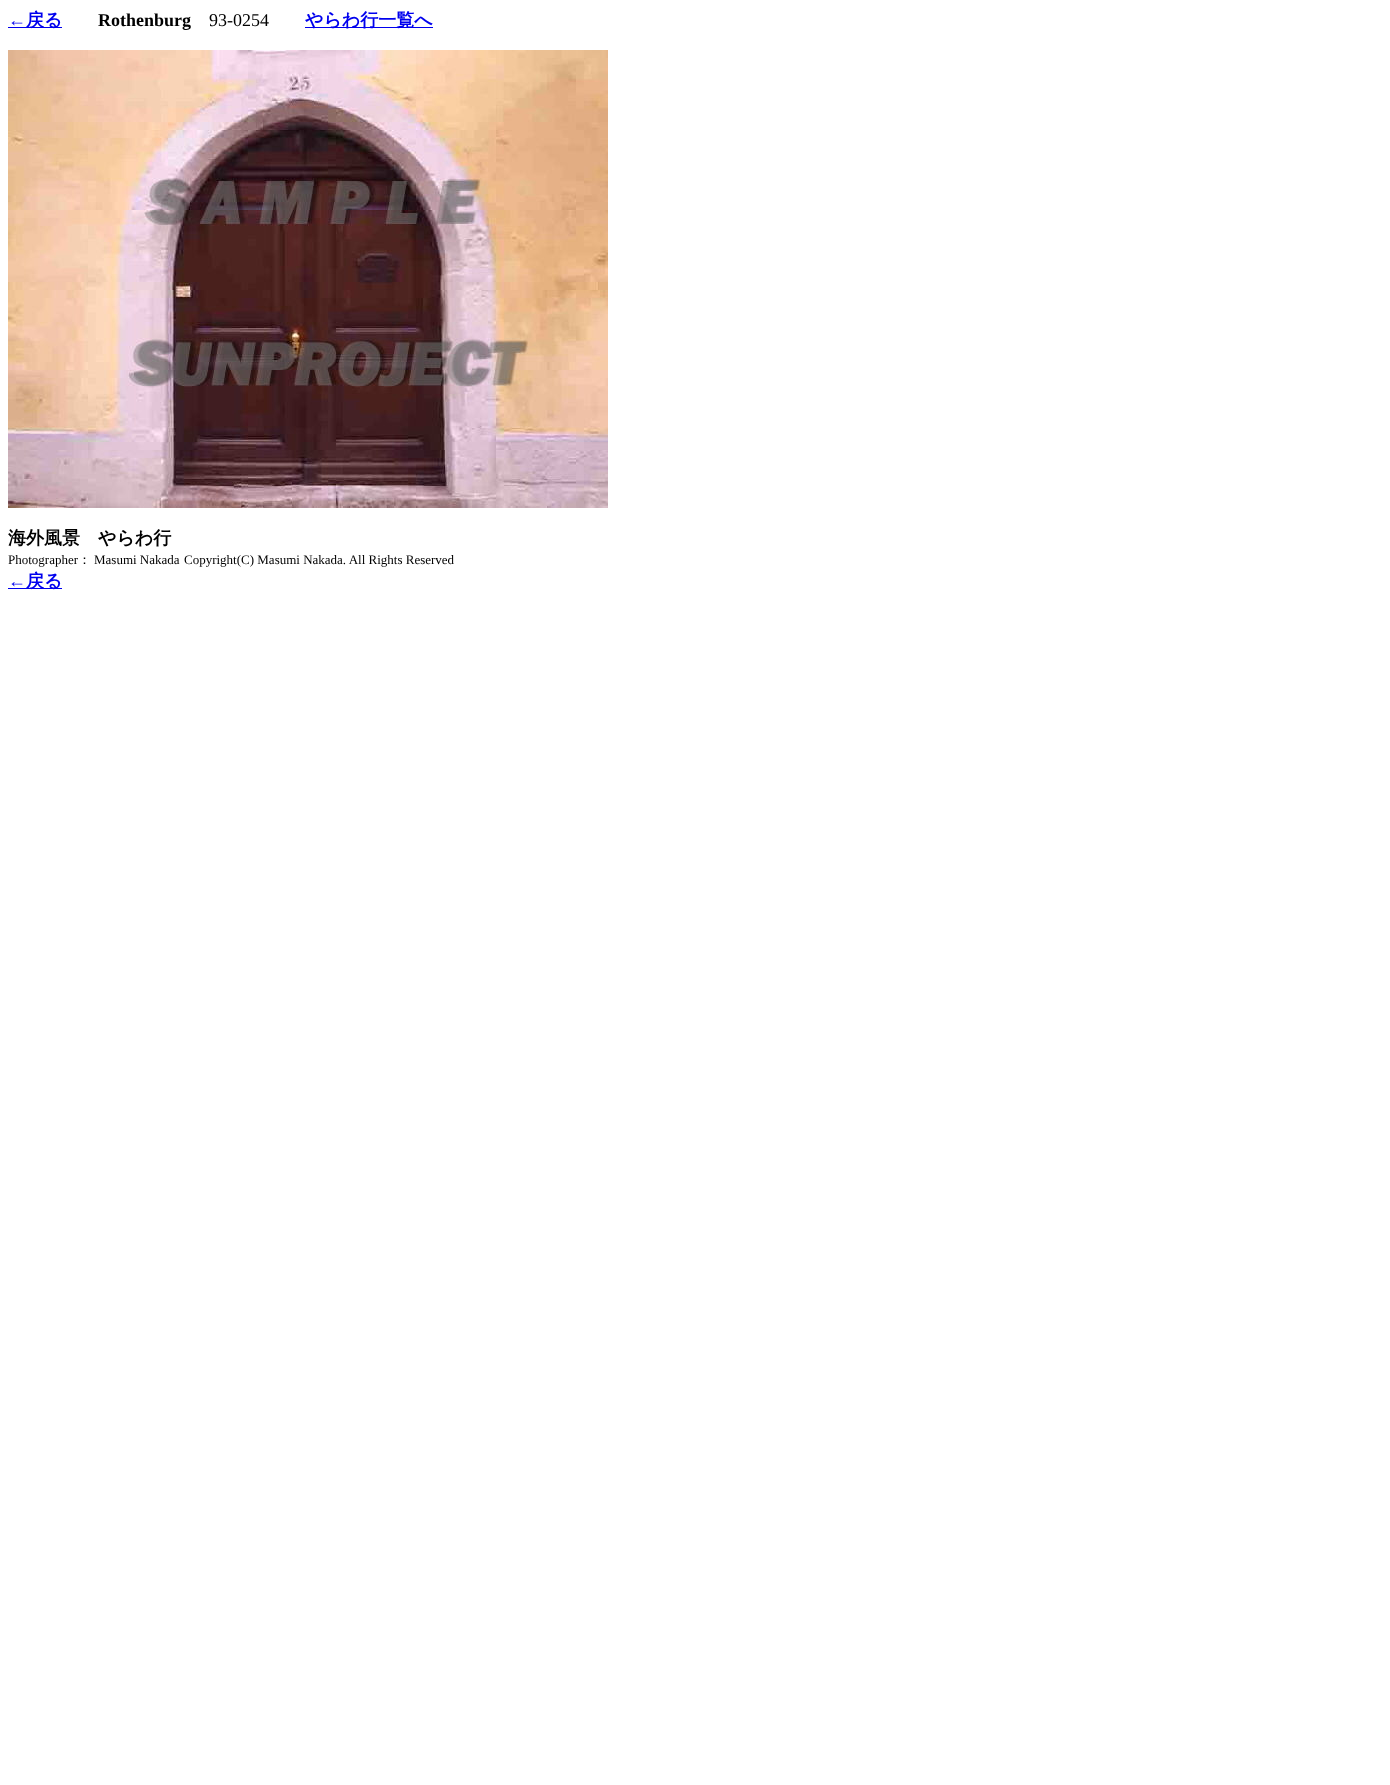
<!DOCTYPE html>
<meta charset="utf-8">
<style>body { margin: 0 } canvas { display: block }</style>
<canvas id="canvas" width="1390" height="1785"></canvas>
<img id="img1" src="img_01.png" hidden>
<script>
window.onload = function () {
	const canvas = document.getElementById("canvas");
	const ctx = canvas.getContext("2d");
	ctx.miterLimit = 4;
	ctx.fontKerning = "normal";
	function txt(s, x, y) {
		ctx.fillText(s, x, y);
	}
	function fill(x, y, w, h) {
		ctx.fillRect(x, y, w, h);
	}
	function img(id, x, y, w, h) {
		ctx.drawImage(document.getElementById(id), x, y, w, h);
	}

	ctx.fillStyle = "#FFFFFF";
	fill(0, 0, 1390, 1785);
	ctx.fillStyle = "#0000EE";
	fill(8, 27, 54, 1);
	fill(305, 27, 128, 1);
	img("img1", 8, 50, 600, 458);
	fill(8, 588, 54, 1);
	ctx.font = "bold 18px Liberation Serif";
	txt("←", 8, 26);
	ctx.font = "bold 18px WenQuanYi Zen Hei";
	txt("戻る", 26, 26);
	ctx.font = "bold 18px Liberation Serif";
	ctx.fillStyle = "#000000";
	txt("Rothenburg", 98, 26);
	ctx.font = "18px Liberation Serif";
	txt("93-0254", 209, 26);
	ctx.font = "bold 18px WenQuanYi Zen Hei";
	ctx.fillStyle = "#0000EE";
	txt("やらわ行一覧へ", 305, 26);
	ctx.fillStyle = "#000000";
	txt("海外風景　やらわ行", 8, 544);
	ctx.font = "13px Liberation Serif";
	txt("Photographer", 8, 564);
	ctx.font = "500 13px WenQuanYi Zen Hei";
	txt("：", 78, 564);
	ctx.font = "13px Liberation Serif";
	txt("Masumi Nakada", 94, 564);
	txt("Copyright(C) Masumi Nakada. All Rights Reserved", 184, 564);
	ctx.font = "bold 18px Liberation Serif";
	ctx.fillStyle = "#0000EE";
	txt("←", 8, 587);
	ctx.font = "bold 18px WenQuanYi Zen Hei";
	txt("戻る", 26, 587);
};
</script>
